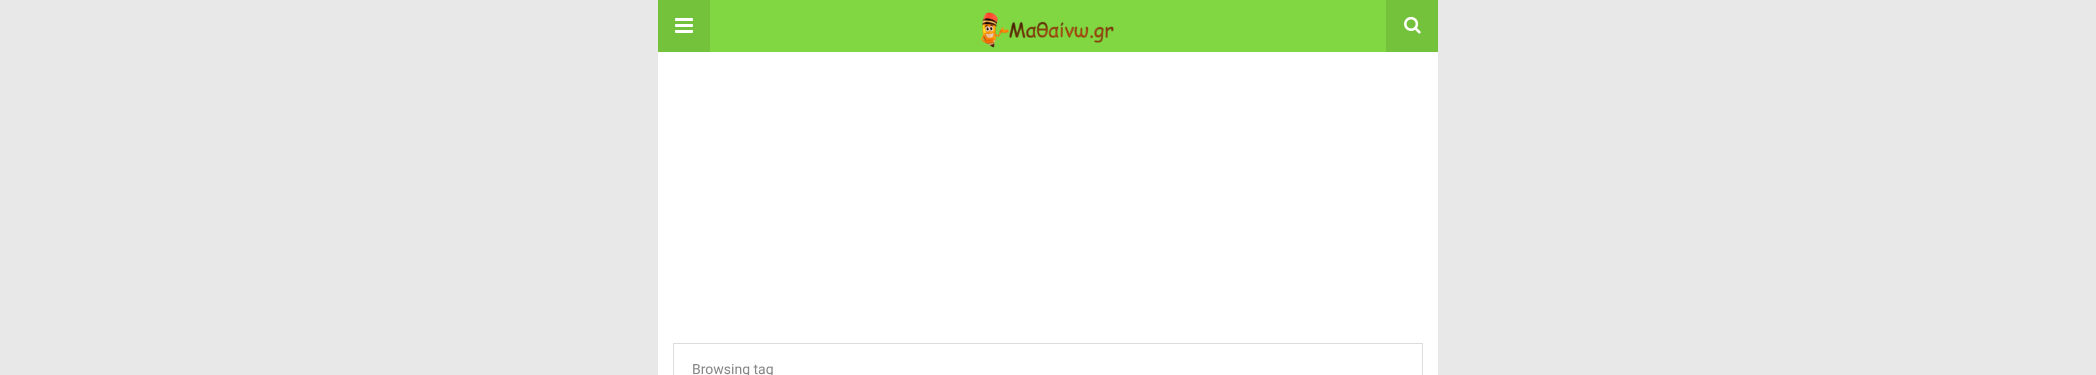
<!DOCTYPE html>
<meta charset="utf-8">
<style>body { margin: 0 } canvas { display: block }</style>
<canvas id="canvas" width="2096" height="375"></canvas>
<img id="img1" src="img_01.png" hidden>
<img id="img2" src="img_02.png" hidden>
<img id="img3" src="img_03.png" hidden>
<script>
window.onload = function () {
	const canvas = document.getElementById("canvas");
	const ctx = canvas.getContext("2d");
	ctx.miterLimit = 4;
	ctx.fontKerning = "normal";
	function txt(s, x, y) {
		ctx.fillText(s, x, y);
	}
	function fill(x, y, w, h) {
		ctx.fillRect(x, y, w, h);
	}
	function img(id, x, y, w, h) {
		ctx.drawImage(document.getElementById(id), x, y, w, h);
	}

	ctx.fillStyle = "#E8E8E8";
	fill(0, 0, 2096, 375);
	ctx.fillStyle = "#FFFFFF";
	fill(658, 52, 780, 323);
	ctx.fillStyle = "#81D742";
	fill(710, 0, 676, 52);
	ctx.fillStyle = "#74C23B";
	fill(658, 0, 52, 52);
	img("img1", 675, 18, 18, 15);
	img("img2", 980, 12, 134, 36);
	fill(1386, 0, 52, 52);
	img("img3", 1404, 16, 17, 18);
	ctx.strokeStyle = "#DCDCDC";
	ctx.strokeRect(673.5, 343.5, 749, 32);
	ctx.font = "14px Roboto";
	ctx.fillStyle = "#868686";
	txt("Browsing tag", 692, 374);
};
</script>
